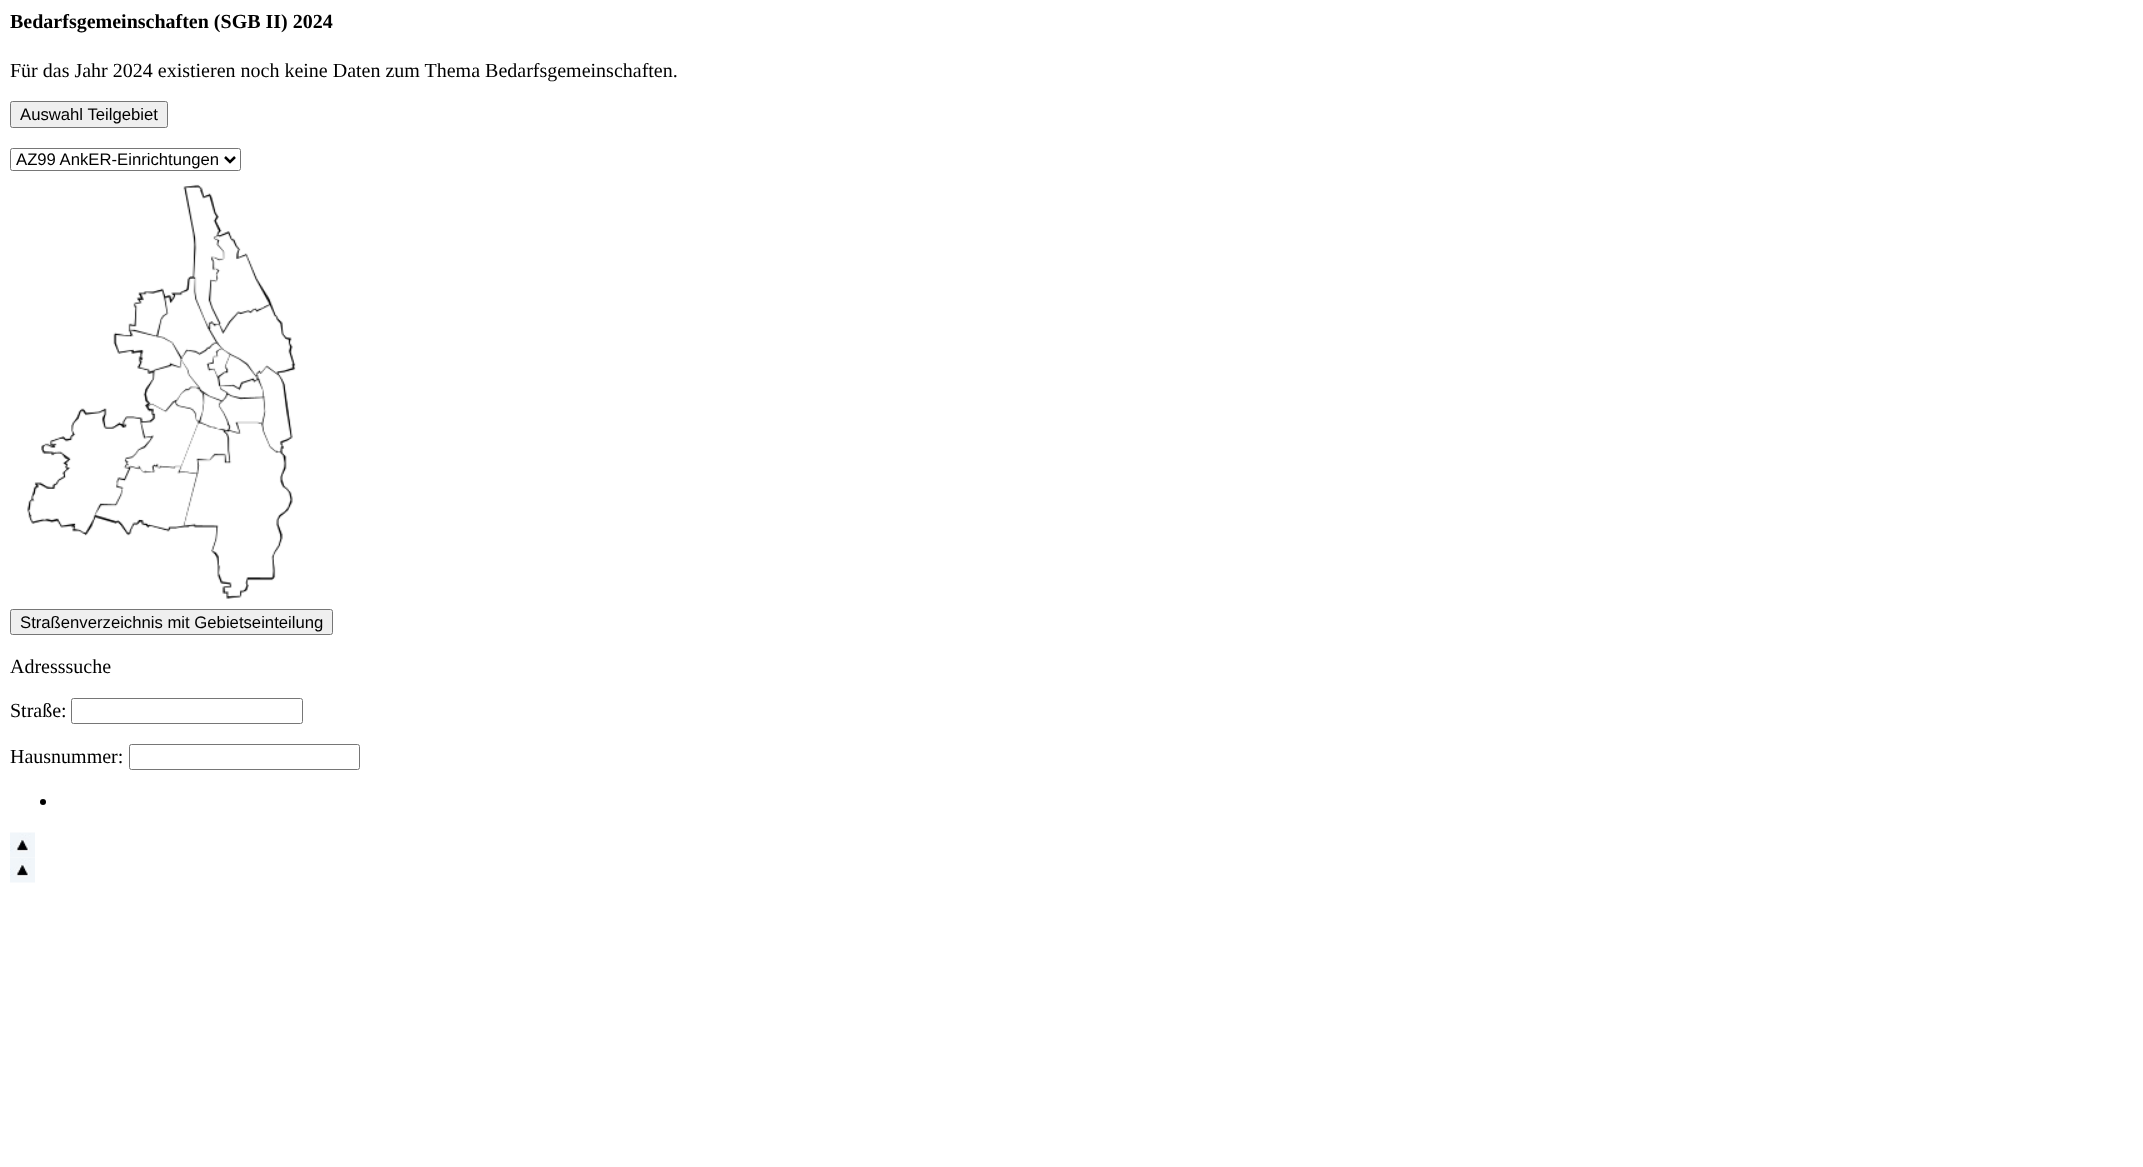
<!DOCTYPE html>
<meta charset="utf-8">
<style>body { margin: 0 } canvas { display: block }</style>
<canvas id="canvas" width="2143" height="1167"></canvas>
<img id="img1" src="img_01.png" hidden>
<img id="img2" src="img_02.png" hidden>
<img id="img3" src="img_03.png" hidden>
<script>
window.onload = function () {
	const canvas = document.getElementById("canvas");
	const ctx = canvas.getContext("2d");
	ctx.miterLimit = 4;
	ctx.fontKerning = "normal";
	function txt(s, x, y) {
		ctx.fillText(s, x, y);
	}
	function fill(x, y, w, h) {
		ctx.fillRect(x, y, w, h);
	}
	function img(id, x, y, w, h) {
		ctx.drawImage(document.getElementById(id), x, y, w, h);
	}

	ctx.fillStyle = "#FFFFFF";
	fill(0, 0, 2143, 1167);
	ctx.fillStyle = "#EFEFEF";
	ctx.beginPath();
	ctx.roundRect(10.5, 101.5, 157, 26, 2);
	ctx.fill();
	ctx.strokeStyle = "#767676";
	ctx.stroke();
	ctx.beginPath();
	ctx.roundRect(10.5, 148.5, 230, 22, 2);
	ctx.stroke();
	ctx.beginPath();
	ctx.moveTo(225, 157);
	ctx.lineTo(230, 162);
	ctx.lineTo(235, 157);
	ctx.strokeStyle = "#000000";
	ctx.lineWidth = 2.5;
	ctx.stroke();
	img("img1", 27, 184, 269, 415);
	ctx.beginPath();
	ctx.roundRect(10.5, 609.5, 322, 25, 2);
	ctx.fill();
	ctx.strokeStyle = "#767676";
	ctx.lineWidth = 1;
	ctx.stroke();
	ctx.beginPath();
	ctx.roundRect(71.5, 698.5, 231, 25, 2);
	ctx.stroke();
	ctx.beginPath();
	ctx.roundRect(129.5, 744.5, 230, 25, 2);
	ctx.stroke();
	ctx.fillStyle = "#000000";
	ctx.beginPath();
	ctx.arc(43, 802, 3, 0, Math.PI * 2);
	ctx.fill();
	img("img2", 10, 832, 25, 26);
	img("img3", 10, 857, 25, 26);
	ctx.font = "bold 20px Liberation Serif";
	txt("Bedarfsgemeinschaften (SGB II) 2024", 10, 28);
	ctx.font = "20px Liberation Serif";
	txt("Für das Jahr 2024 existieren noch keine Daten zum Thema Bedarfsgemeinschaften.", 10, 77);
	ctx.font = "16.7px Liberation Sans";
	txt("Auswahl Teilgebiet", 20, 120);
	txt("AZ99 AnkER-Einrichtungen", 16, 165);
	txt("Straßenverzeichnis mit Gebietseinteilung", 20, 628);
	ctx.font = "20px Liberation Serif";
	txt("Adresssuche", 10, 673);
	txt("Straße:", 10, 717);
	txt("Hausnummer:", 10, 763);
};
</script>
